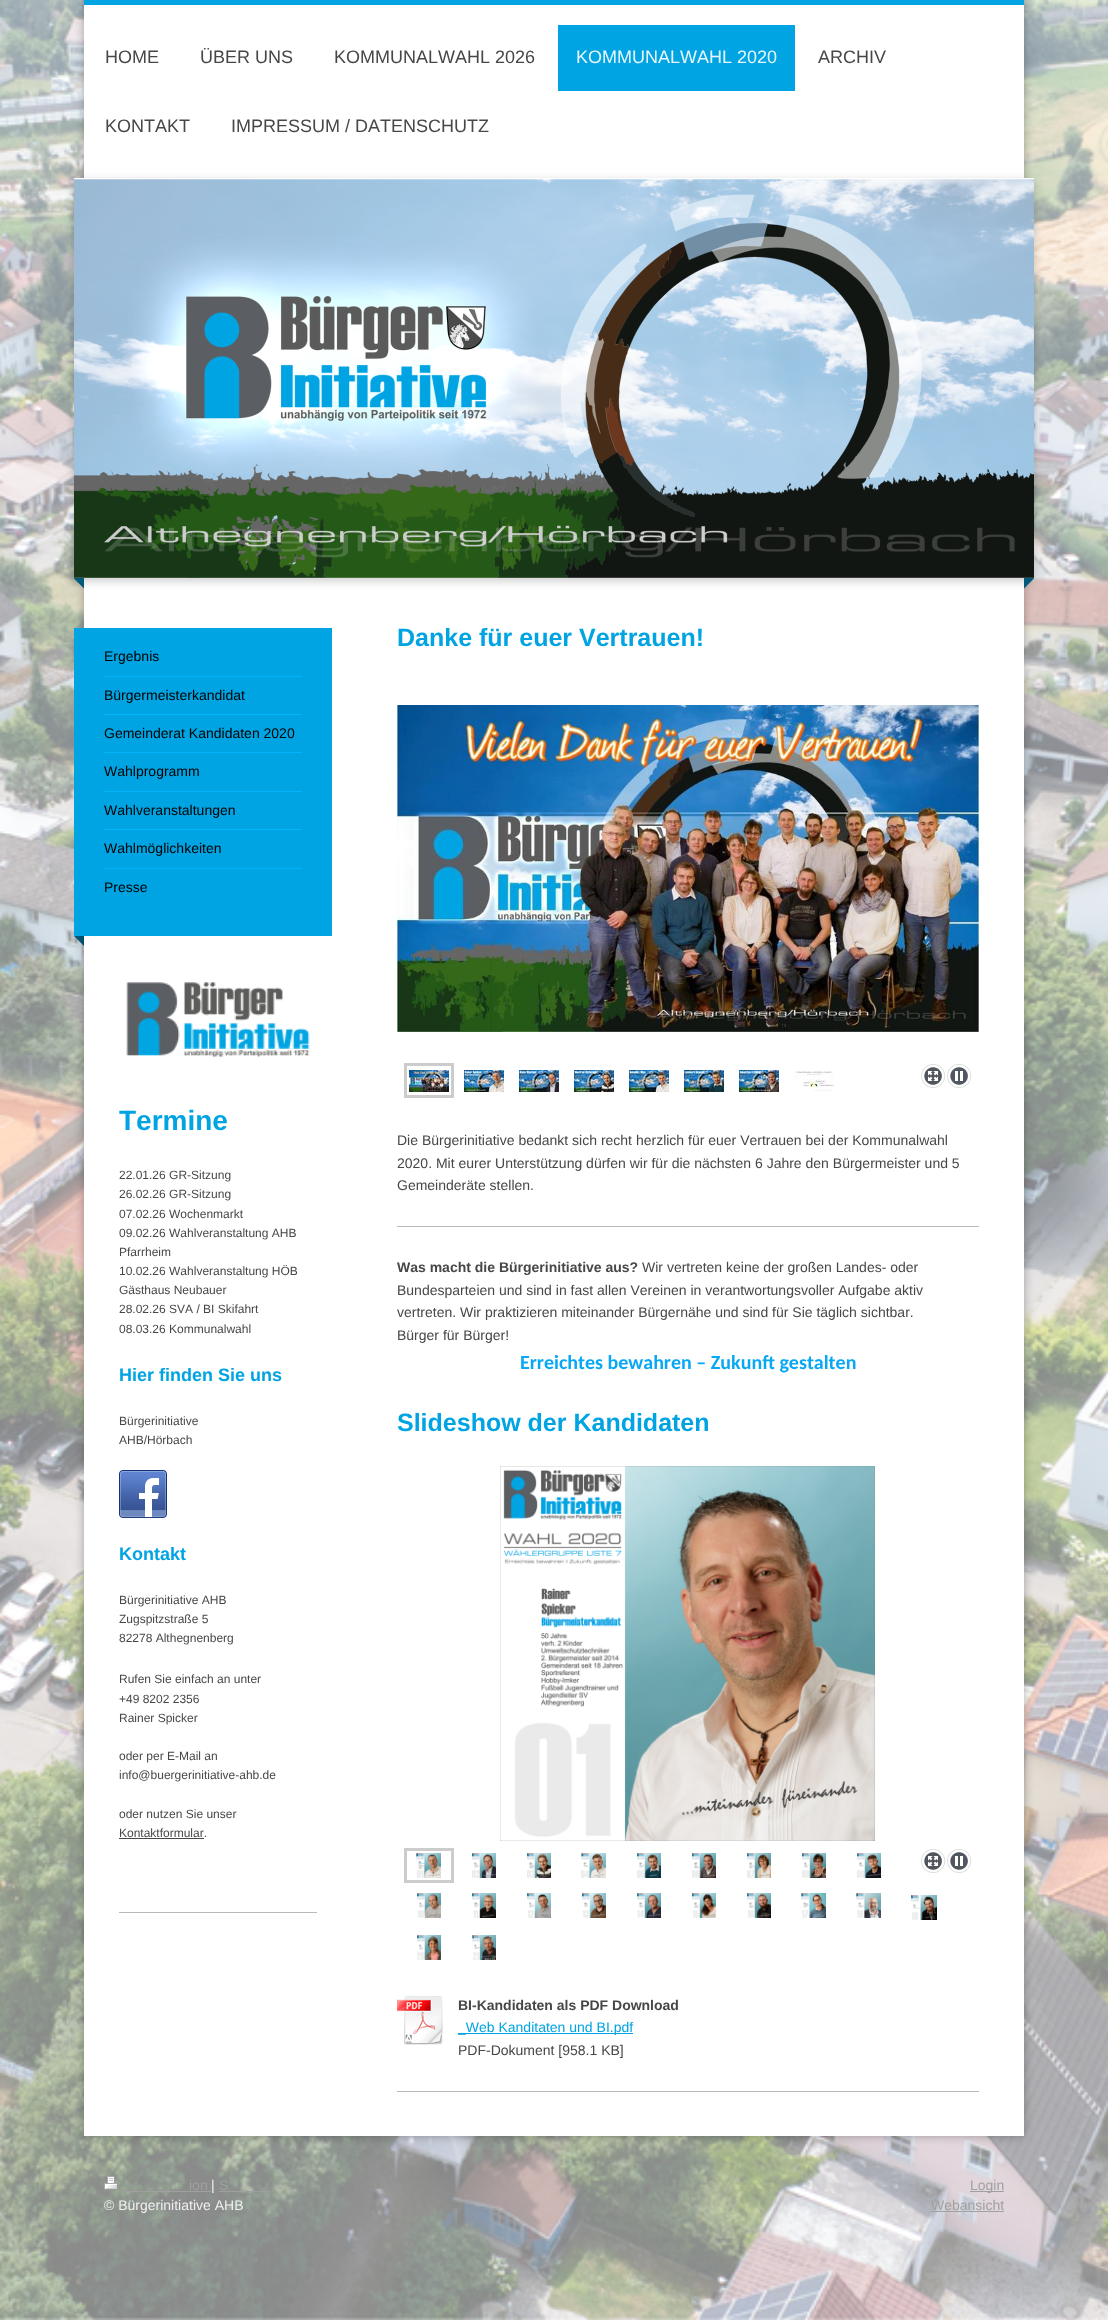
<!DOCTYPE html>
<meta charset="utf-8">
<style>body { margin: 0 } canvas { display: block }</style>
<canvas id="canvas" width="1108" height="2320"></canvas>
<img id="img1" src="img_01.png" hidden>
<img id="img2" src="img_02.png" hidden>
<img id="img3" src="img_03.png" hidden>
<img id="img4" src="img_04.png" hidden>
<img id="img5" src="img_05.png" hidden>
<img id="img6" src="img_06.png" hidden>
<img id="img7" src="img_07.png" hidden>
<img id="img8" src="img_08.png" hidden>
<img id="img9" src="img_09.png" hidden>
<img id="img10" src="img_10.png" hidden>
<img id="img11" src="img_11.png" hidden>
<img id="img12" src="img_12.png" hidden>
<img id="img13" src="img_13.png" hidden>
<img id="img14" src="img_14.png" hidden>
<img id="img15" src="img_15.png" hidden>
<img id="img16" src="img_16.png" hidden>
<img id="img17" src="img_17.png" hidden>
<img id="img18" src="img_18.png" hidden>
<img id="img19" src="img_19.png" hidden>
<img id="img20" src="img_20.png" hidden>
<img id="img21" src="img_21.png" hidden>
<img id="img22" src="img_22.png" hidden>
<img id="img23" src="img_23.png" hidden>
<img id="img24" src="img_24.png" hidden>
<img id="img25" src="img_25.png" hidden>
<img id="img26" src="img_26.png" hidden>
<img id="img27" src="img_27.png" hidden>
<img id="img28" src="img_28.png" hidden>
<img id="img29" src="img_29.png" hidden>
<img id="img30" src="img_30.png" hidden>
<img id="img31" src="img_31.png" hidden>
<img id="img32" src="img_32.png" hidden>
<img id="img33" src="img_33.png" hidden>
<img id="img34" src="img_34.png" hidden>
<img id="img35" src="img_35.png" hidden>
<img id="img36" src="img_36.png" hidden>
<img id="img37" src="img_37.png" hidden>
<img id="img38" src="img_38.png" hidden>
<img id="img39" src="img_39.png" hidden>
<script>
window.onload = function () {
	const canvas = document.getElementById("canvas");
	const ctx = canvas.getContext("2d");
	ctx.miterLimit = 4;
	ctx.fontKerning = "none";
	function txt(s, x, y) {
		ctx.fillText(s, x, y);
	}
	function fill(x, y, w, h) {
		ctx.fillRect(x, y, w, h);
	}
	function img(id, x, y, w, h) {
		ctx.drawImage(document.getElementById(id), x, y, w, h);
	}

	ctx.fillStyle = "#FFFFFF";
	fill(0, 0, 1108, 2320);
	img("img1", 0, 0, 1108, 2320);
	ctx.fillStyle = "#005A7C";
	ctx.beginPath();
	ctx.moveTo(84, 926);
	ctx.lineTo(84, 946);
	ctx.lineTo(74, 936);
	ctx.closePath();
	ctx.fill();
	ctx.fillStyle = "rgba(0, 0, 0, 0.3)";
	ctx.filter = "blur(5px)";
	ctx.beginPath();
	ctx.rect(84, 0, 940, 2136);
	ctx.fill();
	ctx.filter = "none";
	ctx.fillStyle = "#FFFFFF";
	fill(84, 5, 940, 2131);
	ctx.fillStyle = "#00A4E2";
	fill(84, 0, 940, 5);
	fill(558, 25, 237, 66);
	ctx.fillStyle = "rgba(0, 0, 0, 0.2)";
	ctx.filter = "blur(5px)";
	ctx.beginPath();
	ctx.rect(74, 181, 960, 400);
	ctx.fill();
	ctx.filter = "none";
	ctx.fillStyle = "#005A7C";
	ctx.beginPath();
	ctx.moveTo(84, 568.5);
	ctx.lineTo(84, 588.5);
	ctx.lineTo(74, 578.5);
	ctx.closePath();
	ctx.fill();
	ctx.beginPath();
	ctx.moveTo(1024, 588.5);
	ctx.lineTo(1024, 568.5);
	ctx.lineTo(1034, 578.5);
	ctx.closePath();
	ctx.fill();
	img("img2", 74, 178, 960, 400);
	ctx.fillStyle = "#00A4E2";
	fill(74, 628, 258, 308);
	ctx.fillStyle = "#00B5F9";
	fill(104, 676, 198, 1);
	fill(104, 714, 198, 1);
	fill(104, 752, 198, 1);
	fill(104, 791, 198, 1);
	fill(104, 829, 198, 1);
	fill(104, 868, 198, 1);
	img("img3", 126, 982, 184, 76);
	img("img4", 119, 1470, 48, 48);
	ctx.fillStyle = "#474747";
	fill(119, 1838, 85, 1);
	ctx.fillStyle = "#BABABA";
	fill(119, 1912, 198, 1);
	img("img5", 397, 705, 582, 327);
	ctx.strokeStyle = "#CCCCCC";
	ctx.lineWidth = 3;
	ctx.strokeRect(405.5, 1064.5, 47, 32);
	img("img6", 409, 1070, 40, 22);
	img("img7", 464, 1070, 40, 22);
	img("img8", 519, 1070, 40, 22);
	img("img9", 574, 1070, 40, 22);
	img("img10", 629, 1070, 40, 22);
	img("img11", 684, 1070, 40, 22);
	img("img12", 739, 1070, 40, 22);
	img("img13", 794, 1071, 40, 20);
	img("img14", 921, 1064, 25, 24);
	img("img15", 947, 1064, 25, 24);
	fill(397, 1226, 582, 1);
	img("img16", 500, 1466, 375, 375);
	ctx.strokeRect(405.5, 1849.5, 47, 32);
	img("img17", 416, 1853, 25, 25);
	img("img18", 472, 1853, 24, 25);
	img("img19", 527, 1853, 24, 25);
	img("img20", 581, 1853, 25, 25);
	img("img21", 637, 1853, 24, 25);
	img("img22", 692, 1853, 24, 25);
	img("img23", 747, 1853, 24, 25);
	img("img24", 802, 1853, 24, 25);
	img("img25", 857, 1853, 24, 25);
	img("img14", 921, 1849, 25, 24);
	img("img15", 947, 1849, 25, 24);
	img("img26", 417, 1893, 24, 25);
	img("img27", 472, 1893, 24, 25);
	img("img28", 527, 1893, 24, 25);
	img("img29", 582, 1893, 24, 25);
	img("img30", 637, 1893, 24, 25);
	img("img31", 692, 1893, 24, 25);
	img("img32", 747, 1893, 24, 25);
	img("img33", 801, 1893, 25, 25);
	img("img34", 856, 1893, 25, 25);
	img("img35", 911, 1895, 26, 25);
	img("img36", 417, 1935, 24, 25);
	img("img37", 472, 1935, 24, 25);
	img("img38", 397, 1996, 46, 49);
	ctx.fillStyle = "#00A4E2";
	fill(458, 2033, 175, 1);
	ctx.fillStyle = "#BABABA";
	fill(397, 2091, 582, 1);
	img("img39", 104, 2176, 14, 14);
	ctx.fillStyle = "#A0A0A0";
	fill(122, 2191, 89, 1);
	fill(219, 2191, 51, 1);
	fill(970, 2191, 34, 1);
	fill(931, 2211, 73, 1);
	ctx.font = "18px Liberation Sans";
	ctx.fillStyle = "#474747";
	txt("HOME", 105, 63);
	txt("ÜBER UNS", 200, 63);
	txt("KOMMUNALWAHL 2026", 334, 63);
	ctx.fillStyle = "#E6F6FC";
	txt("KOMMUNALWAHL 2020", 576, 63);
	ctx.fillStyle = "#474747";
	txt("ARCHIV", 818, 63);
	txt("KONTAKT", 105, 132);
	txt("IMPRESSUM / DATENSCHUTZ", 231, 132);
	ctx.font = "14px Liberation Sans";
	ctx.fillStyle = "#000000";
	txt("Ergebnis", 104, 661);
	txt("Bürgermeisterkandidat", 104, 700);
	txt("Gemeinderat Kandidaten 2020", 104, 738);
	txt("Wahlprogramm", 104, 776);
	txt("Wahlveranstaltungen", 104, 815);
	txt("Wahlmöglichkeiten", 104, 853);
	txt("Presse", 104, 892);
	ctx.font = "bold 28px Liberation Sans";
	ctx.fillStyle = "#00A4E2";
	txt("Termine", 119, 1130);
	ctx.font = "12px Liberation Sans";
	ctx.fillStyle = "#474747";
	txt("22.01.26 GR-Sitzung", 119, 1179);
	txt("26.02.26 GR-Sitzung", 119, 1198);
	txt("07.02.26 Wochenmarkt", 119, 1218);
	txt("09.02.26 Wahlveranstaltung AHB", 119, 1237);
	txt("Pfarrheim", 119, 1256);
	txt("10.02.26 Wahlveranstaltung HÖB", 119, 1275);
	txt("Gästhaus Neubauer", 119, 1294);
	txt("28.02.26 SVA / BI Skifahrt", 119, 1313);
	txt("08.03.26 Kommunalwahl", 119, 1333);
	ctx.font = "bold 18px Liberation Sans";
	ctx.fillStyle = "#00A4E2";
	txt("Hier finden Sie uns", 119, 1381);
	ctx.font = "12px Liberation Sans";
	ctx.fillStyle = "#474747";
	txt("Bürgerinitiative", 119, 1425);
	txt("AHB/Hörbach", 119, 1444);
	ctx.font = "bold 18px Liberation Sans";
	ctx.fillStyle = "#00A4E2";
	txt("Kontakt", 119, 1560);
	ctx.font = "12px Liberation Sans";
	ctx.fillStyle = "#474747";
	txt("Bürgerinitiative AHB", 119, 1604);
	txt("Zugspitzstraße 5", 119, 1623);
	txt("82278 Althegnenberg", 119, 1642);
	txt("Rufen Sie einfach an unter", 119, 1683);
	txt("+49 8202 2356", 119, 1703);
	txt("Rainer Spicker", 119, 1722);
	txt("oder per E-Mail an", 119, 1760);
	txt("info@buergerinitiative-ahb.de", 119, 1779);
	txt("oder nutzen Sie unser", 119, 1818);
	txt("Kontaktformular.", 119, 1837);
	ctx.font = "bold 25px Liberation Sans";
	ctx.fillStyle = "#00A4E2";
	txt("Danke für euer Vertrauen!", 397, 646);
	ctx.font = "14px Liberation Sans";
	ctx.fillStyle = "#474747";
	txt("Die Bürgerinitiative bedankt sich recht herzlich für euer Vertrauen bei der Kommunalwahl", 397, 1145);
	txt("2020. Mit eurer Unterstützung dürfen wir für die nächsten 6 Jahre den Bürgermeister und 5", 397, 1168);
	txt("Gemeinderäte stellen.", 397, 1190);
	ctx.font = "bold 14px Liberation Sans";
	txt("Was macht die Bürgerinitiative aus?", 397, 1272);
	ctx.font = "14px Liberation Sans";
	txt("Wir vertreten keine der großen Landes- oder", 642, 1272);
	txt("Bundesparteien und sind in fast allen Vereinen in verantwortungsvoller Aufgabe aktiv", 397, 1295);
	txt("vertreten. Wir praktizieren miteinander Bürgernähe und sind für Sie täglich sichtbar.", 397, 1317);
	txt("Bürger für Bürger!", 397, 1340);
	ctx.font = "bold 20px Carlito";
	ctx.fillStyle = "#09A8F4";
	txt("Erreichtes bewahren – Zukunft gestalten", 520, 1369);
	ctx.font = "bold 25px Liberation Sans";
	ctx.fillStyle = "#00A4E2";
	txt("Slideshow der Kandidaten", 397, 1431);
	ctx.font = "bold 14px Liberation Sans";
	ctx.fillStyle = "#474747";
	txt("BI-Kandidaten als PDF Download", 458, 2010);
	ctx.font = "14px Liberation Sans";
	ctx.fillStyle = "#00A4E2";
	txt("_Web Kanditaten und BI.pdf", 458, 2032);
	ctx.fillStyle = "#474747";
	txt("PDF-Dokument [958.1 KB]", 458, 2055);
	ctx.fillStyle = "#A0A0A0";
	txt("ion", 189, 2190);
	ctx.fillStyle = "#EFEFEF";
	txt("|", 211, 2190);
	ctx.fillStyle = "#A0A0A0";
	txt("S", 219, 2190);
	ctx.fillStyle = "#EFEFEF";
	txt("© Bürgerinitiative AHB", 104, 2210);
	ctx.fillStyle = "#A0A0A0";
	txt("Login", 970, 2190);
	txt("Webansicht", 931, 2210);
};
</script>
